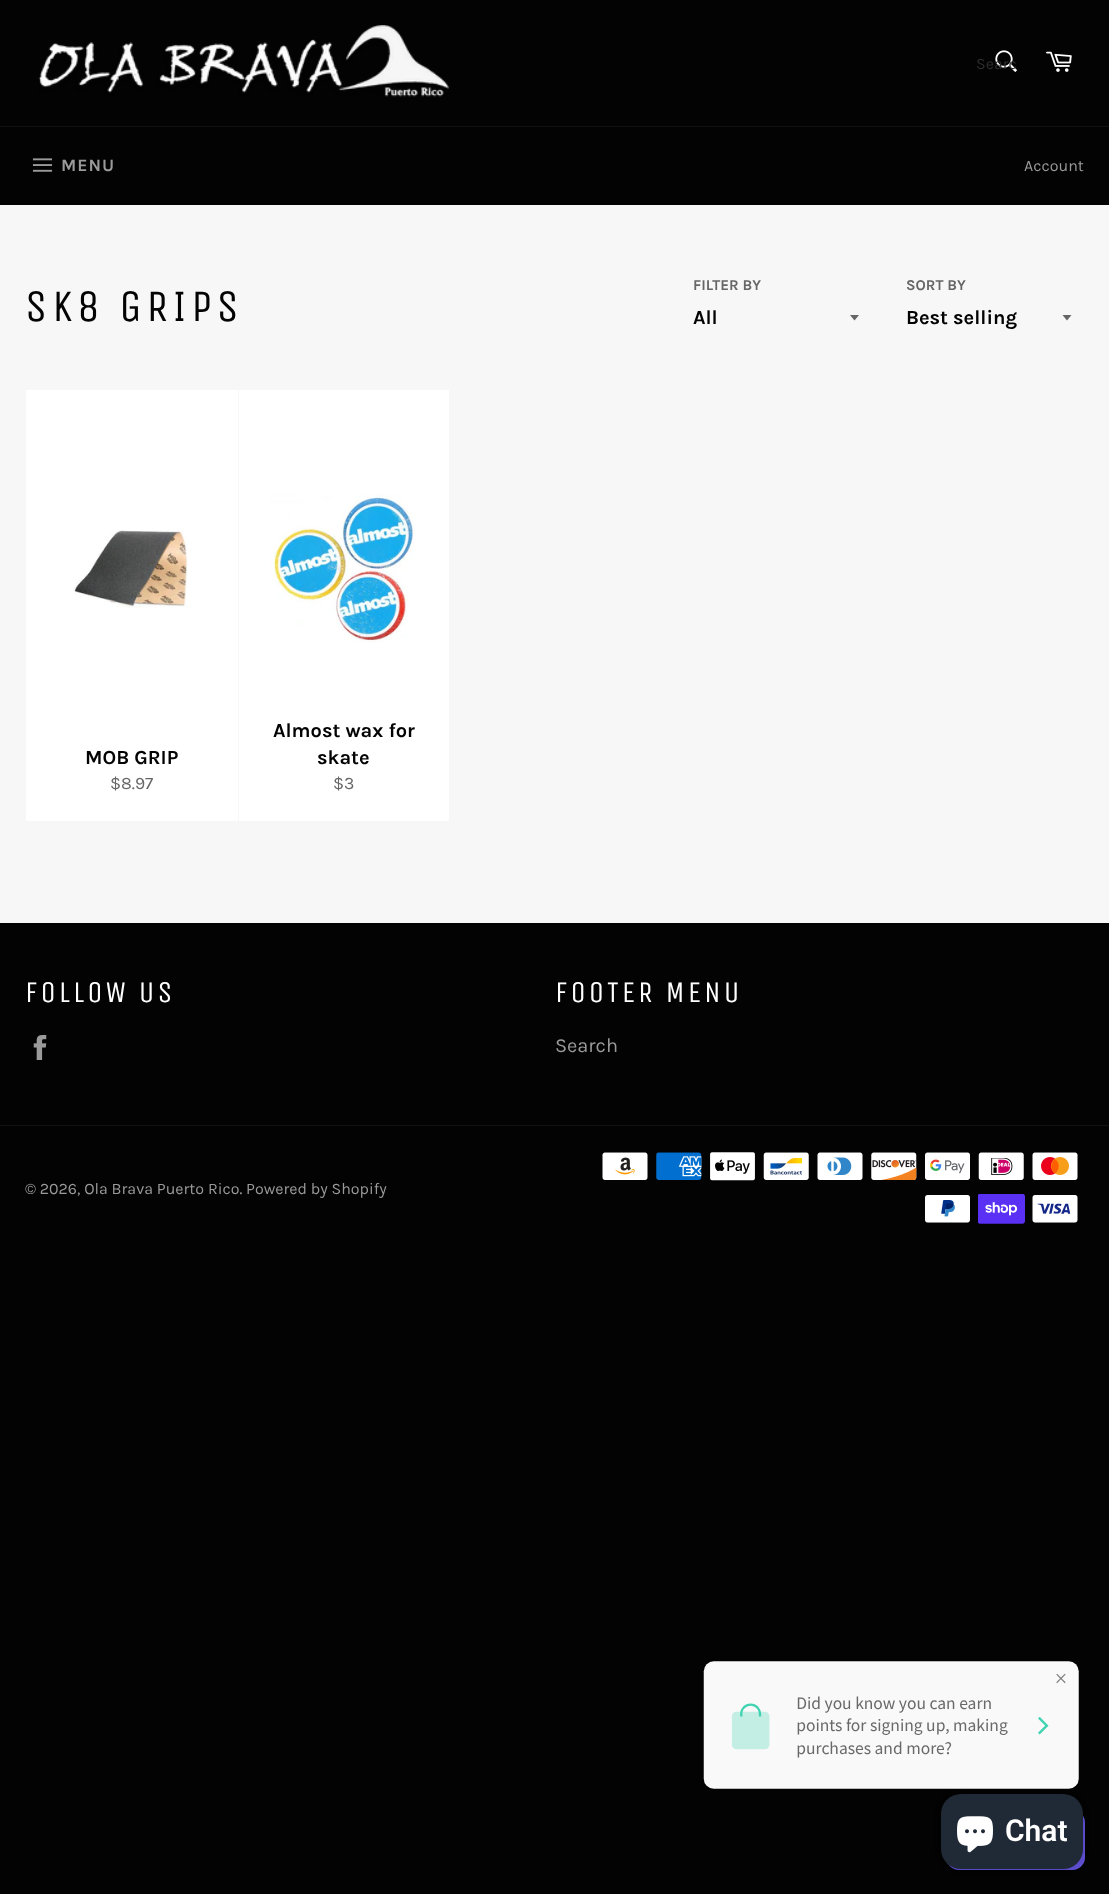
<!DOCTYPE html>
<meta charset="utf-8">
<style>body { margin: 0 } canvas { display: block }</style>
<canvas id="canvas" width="1109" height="1894"></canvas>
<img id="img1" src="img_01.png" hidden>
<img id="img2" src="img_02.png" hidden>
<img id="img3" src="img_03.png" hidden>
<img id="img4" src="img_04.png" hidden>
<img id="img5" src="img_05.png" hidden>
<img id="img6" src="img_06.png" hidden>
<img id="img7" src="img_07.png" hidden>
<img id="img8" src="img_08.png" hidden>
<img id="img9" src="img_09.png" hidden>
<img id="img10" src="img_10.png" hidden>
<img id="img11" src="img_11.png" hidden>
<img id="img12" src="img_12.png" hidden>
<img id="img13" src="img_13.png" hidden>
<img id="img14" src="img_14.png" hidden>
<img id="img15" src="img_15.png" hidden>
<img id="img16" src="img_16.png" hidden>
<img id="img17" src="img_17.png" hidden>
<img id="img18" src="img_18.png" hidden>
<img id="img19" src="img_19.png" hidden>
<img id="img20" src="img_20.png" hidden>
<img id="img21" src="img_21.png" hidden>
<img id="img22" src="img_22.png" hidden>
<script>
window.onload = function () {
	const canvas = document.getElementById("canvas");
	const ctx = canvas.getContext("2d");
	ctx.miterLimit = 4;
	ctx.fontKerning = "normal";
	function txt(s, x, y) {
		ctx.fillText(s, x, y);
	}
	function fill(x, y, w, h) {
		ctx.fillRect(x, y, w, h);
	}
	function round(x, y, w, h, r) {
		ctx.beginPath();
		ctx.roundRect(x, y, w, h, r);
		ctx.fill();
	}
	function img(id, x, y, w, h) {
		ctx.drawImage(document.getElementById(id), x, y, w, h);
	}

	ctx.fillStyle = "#030303";
	fill(0, 0, 1109, 1894);
	ctx.fillStyle = "#F7F7F7";
	fill(0, 205, 1109, 718);
	img("img1", 38, 25, 411, 72);
	img("img2", 995, 50, 22, 22);
	img("img3", 1046, 51, 26, 21);
	ctx.fillStyle = "#101010";
	fill(0, 126, 1109, 1);
	img("img4", 32, 158, 21, 14);
	ctx.fillStyle = "#666666";
	ctx.beginPath();
	ctx.moveTo(850, 315);
	ctx.lineTo(854.5, 320.5);
	ctx.lineTo(859, 315);
	ctx.closePath();
	ctx.fill();
	ctx.beginPath();
	ctx.moveTo(1062.5, 315);
	ctx.lineTo(1067, 320.5);
	ctx.lineTo(1071.5, 315);
	ctx.closePath();
	ctx.fill();
	ctx.fillStyle = "#FFFFFF";
	fill(26, 390, 212, 431);
	img("img5", 74, 528, 114, 80);
	fill(239, 390, 210, 431);
	img("img6", 270, 494, 145, 149);
	img("img7", 33, 1035, 14, 25);
	ctx.fillStyle = "#101010";
	fill(0, 1125, 1109, 1);
	img("img8", 602, 1152, 46, 28);
	img("img9", 656, 1152, 46, 28);
	img("img10", 710, 1152, 45, 29);
	img("img11", 763, 1152, 46, 28);
	img("img12", 817, 1152, 46, 28);
	img("img13", 871, 1152, 46, 28);
	img("img14", 925, 1152, 45, 28);
	img("img15", 978, 1152, 46, 28);
	img("img16", 1032, 1152, 46, 28);
	img("img17", 925, 1195, 45, 28);
	img("img18", 978, 1194, 47, 30);
	img("img19", 1032, 1195, 46, 28);
	img("img20", 703, 1661, 376, 128);
	img("img21", 947, 1816, 138, 54);
	ctx.fillStyle = "rgba(0, 0, 0, 0.15)";
	ctx.filter = "blur(3px)";
	ctx.beginPath();
	ctx.roundRect(941, 1794, 142, 75, 20);
	ctx.fill();
	ctx.filter = "none";
	ctx.fillStyle = "#202A36";
	round(941, 1794, 142, 75, 20);
	img("img22", 957, 1816, 36, 37);
	ctx.save();
	ctx.beginPath();
	ctx.rect(976, 54, 40, 19);
	ctx.clip();
	ctx.font = "16px Karla";
	ctx.fillStyle = "#2D2D2D";
	txt("Searc", 976, 69);
	ctx.restore();
	ctx.letterSpacing = "1px";
	ctx.font = "bold 17.5px Karla";
	ctx.fillStyle = "#9A9A9A";
	txt("MENU", 61, 171);
	ctx.letterSpacing = "0px";
	ctx.font = "16px Karla";
	txt("Account", 1024, 171);
	ctx.letterSpacing = "4.5px";
	ctx.font = "45px Unica One";
	ctx.fillStyle = "#030303";
	txt("SK8 GRIPS", 25, 321);
	ctx.letterSpacing = "0px";
	ctx.font = "bold 15px Karla";
	ctx.fillStyle = "#666666";
	txt("FILTER BY", 693, 290);
	ctx.font = "bold 20px Karla";
	ctx.fillStyle = "#030303";
	txt("All", 693, 324);
	ctx.font = "bold 15px Karla";
	ctx.fillStyle = "#666666";
	txt("SORT BY", 906, 290);
	ctx.font = "bold 20px Karla";
	ctx.fillStyle = "#030303";
	txt("Best selling", 906, 324);
	txt("MOB GRIP", 85, 764);
	ctx.font = "17.5px Karla";
	ctx.fillStyle = "#666666";
	txt("$8.97", 110, 789);
	ctx.font = "bold 20px Karla";
	ctx.fillStyle = "#030303";
	txt("Almost wax for", 273, 737);
	txt("skate", 317, 764);
	ctx.font = "17.5px Karla";
	ctx.fillStyle = "#666666";
	txt("$3", 333, 789);
	ctx.letterSpacing = "3px";
	ctx.font = "30px Unica One";
	ctx.fillStyle = "#FFFFFF";
	txt("FOLLOW US", 25, 1002);
	txt("FOOTER MENU", 555, 1002);
	ctx.letterSpacing = "0px";
	ctx.font = "20px Karla";
	ctx.fillStyle = "#9A9A9A";
	txt("Search", 555, 1052);
	ctx.font = "16px Karla";
	txt("© 2026, Ola Brava Puerto Rico. Powered by Shopify", 25, 1194);
	ctx.font = "600 30px Roboto";
	ctx.fillStyle = "#FFFFFF";
	txt("Chat", 1005, 1841);
};
</script>
